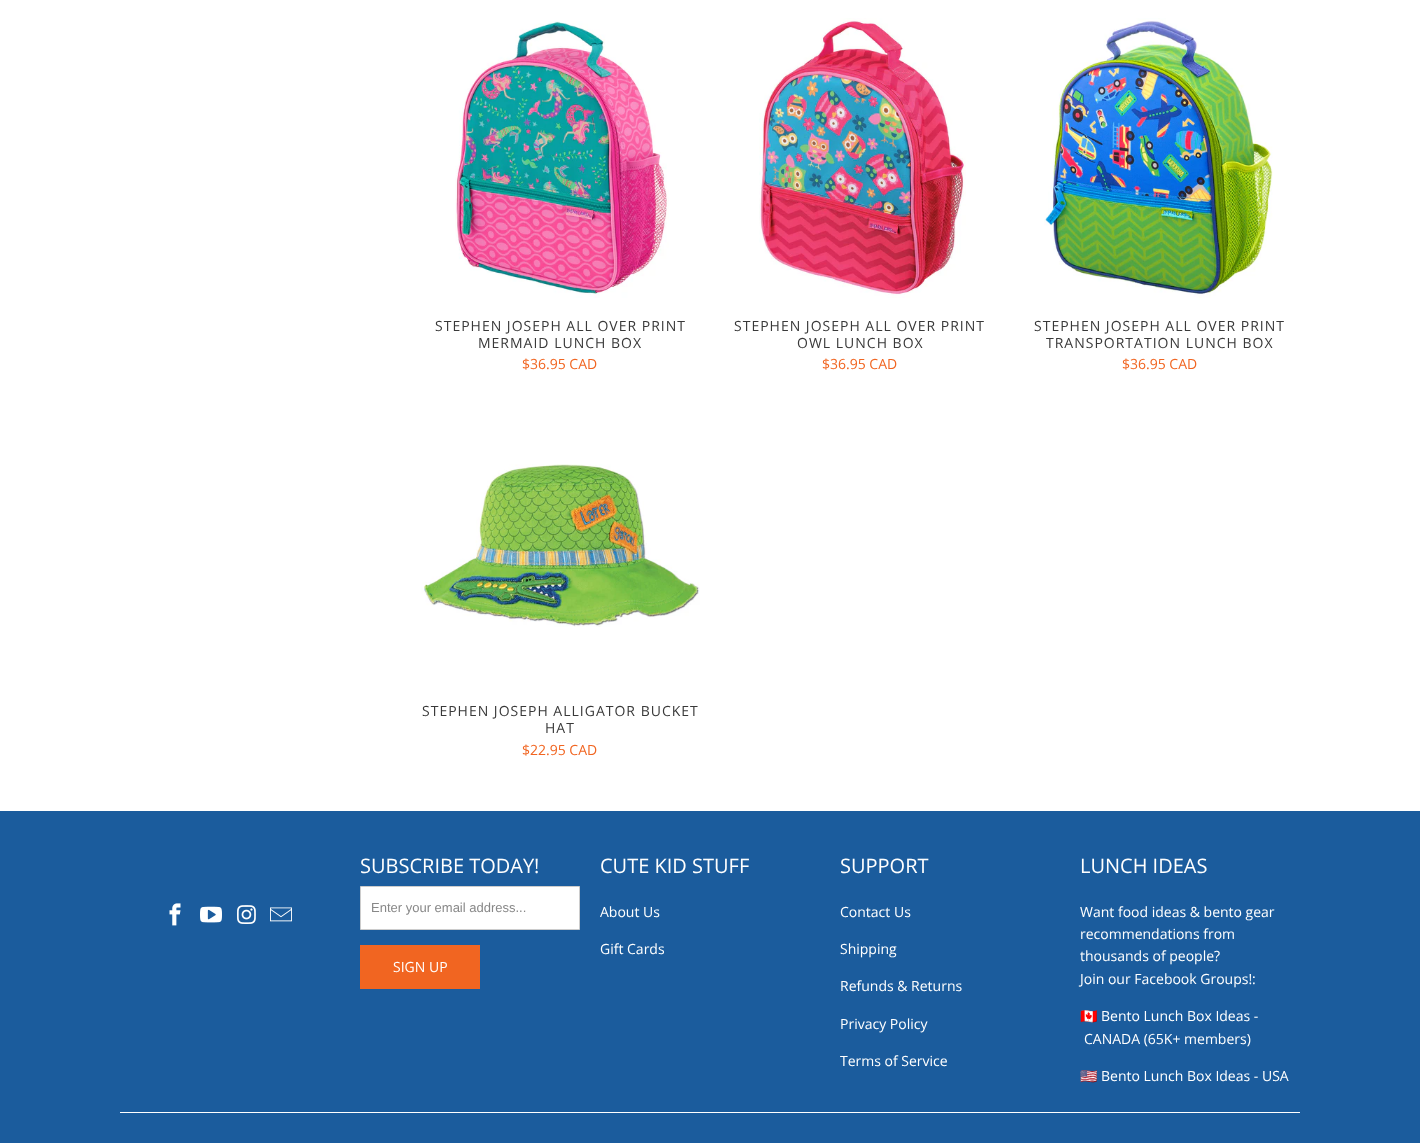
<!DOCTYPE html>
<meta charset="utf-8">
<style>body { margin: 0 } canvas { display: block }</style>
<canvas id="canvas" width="1420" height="1143"></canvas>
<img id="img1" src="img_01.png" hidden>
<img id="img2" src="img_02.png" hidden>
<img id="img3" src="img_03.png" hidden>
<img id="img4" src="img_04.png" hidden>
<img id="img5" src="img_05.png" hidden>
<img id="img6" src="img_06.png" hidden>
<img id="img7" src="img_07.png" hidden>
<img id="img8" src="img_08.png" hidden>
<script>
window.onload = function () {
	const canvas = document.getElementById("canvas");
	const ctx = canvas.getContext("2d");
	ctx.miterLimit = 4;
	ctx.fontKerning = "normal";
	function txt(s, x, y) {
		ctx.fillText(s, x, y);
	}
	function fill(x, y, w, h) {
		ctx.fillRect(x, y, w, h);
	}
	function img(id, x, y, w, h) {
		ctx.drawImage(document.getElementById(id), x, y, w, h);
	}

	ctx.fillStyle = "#FFFFFF";
	fill(0, 0, 1420, 1143);
	img("img1", 455, 21, 214, 277);
	img("img2", 759, 18, 207, 280);
	img("img3", 1044, 18, 229, 280);
	img("img4", 421, 464, 279, 163);
	ctx.fillStyle = "#1B5C9D";
	fill(0, 811, 1420, 332);
	img("img5", 169, 903, 12, 23);
	img("img6", 200, 906, 22, 17);
	img("img7", 237, 905, 19, 19);
	img("img8", 270, 907, 22, 15);
	ctx.fillStyle = "#FFFFFF";
	ctx.beginPath();
	ctx.rect(360.5, 886.5, 219, 43);
	ctx.fill();
	ctx.strokeStyle = "#CCCCCC";
	ctx.stroke();
	ctx.fillStyle = "#F16521";
	fill(360, 945, 120, 44);
	ctx.fillStyle = "#FFFFFF";
	fill(120, 1112, 1180, 1);
	ctx.letterSpacing = "1px";
	ctx.font = "14px Open Sans";
	ctx.fillStyle = "#393939";
	txt("STEPHEN JOSEPH ALL OVER PRINT", 435, 331);
	txt("MERMAID LUNCH BOX", 478, 348);
	ctx.letterSpacing = "0px";
	ctx.fillStyle = "#F16521";
	txt("$36.95 CAD", 522, 369);
	ctx.letterSpacing = "1px";
	ctx.fillStyle = "#393939";
	txt("STEPHEN JOSEPH ALL OVER PRINT", 734, 331);
	txt("OWL LUNCH BOX", 797, 348);
	ctx.letterSpacing = "0px";
	ctx.fillStyle = "#F16521";
	txt("$36.95 CAD", 822, 369);
	ctx.letterSpacing = "1px";
	ctx.fillStyle = "#393939";
	txt("STEPHEN JOSEPH ALL OVER PRINT", 1034, 331);
	txt("TRANSPORTATION LUNCH BOX", 1046, 348);
	ctx.letterSpacing = "0px";
	ctx.fillStyle = "#F16521";
	txt("$36.95 CAD", 1122, 369);
	ctx.letterSpacing = "1px";
	ctx.fillStyle = "#393939";
	txt("STEPHEN JOSEPH ALLIGATOR BUCKET", 422, 716);
	txt("HAT", 545, 733);
	ctx.letterSpacing = "0px";
	ctx.fillStyle = "#F16521";
	txt("$22.95 CAD", 522, 755);
	ctx.font = "20px Open Sans";
	ctx.fillStyle = "#FFFFFF";
	txt("SUBSCRIBE TODAY!", 360, 873);
	ctx.font = "13px Liberation Sans";
	ctx.fillStyle = "#888888";
	txt("Enter your email address...", 371, 912);
	ctx.font = "14px Open Sans";
	ctx.fillStyle = "#FFFFFF";
	txt("SIGN UP", 393, 972);
	ctx.font = "20px Open Sans";
	txt("CUTE KID STUFF", 600, 873);
	ctx.font = "14px Open Sans";
	txt("About Us", 600, 917);
	txt("Gift Cards", 600, 954);
	ctx.font = "20px Open Sans";
	txt("SUPPORT", 840, 873);
	ctx.font = "14px Open Sans";
	txt("Contact Us", 840, 917);
	txt("Shipping", 840, 954);
	txt("Refunds & Returns", 840, 991);
	txt("Privacy Policy", 840, 1029);
	txt("Terms of Service", 840, 1066);
	ctx.font = "20px Open Sans";
	txt("LUNCH IDEAS", 1080, 873);
	ctx.font = "14px Open Sans";
	txt("Want food ideas & bento gear", 1080, 917);
	txt("recommendations from", 1080, 939);
	txt("thousands of people?", 1080, 961);
	txt("Join our Facebook Groups!:", 1080, 984);
	ctx.font = "14px Noto Color Emoji";
	txt("🇨🇦", 1080, 1021);
	ctx.font = "14px Open Sans";
	txt("Bento Lunch Box Ideas -", 1101, 1021);
	txt("CANADA (65K+ members)", 1084, 1044);
	ctx.font = "14px Noto Color Emoji";
	txt("🇺🇸", 1080, 1081);
	ctx.font = "14px Open Sans";
	txt("Bento Lunch Box Ideas - USA", 1101, 1081);
};
</script>
